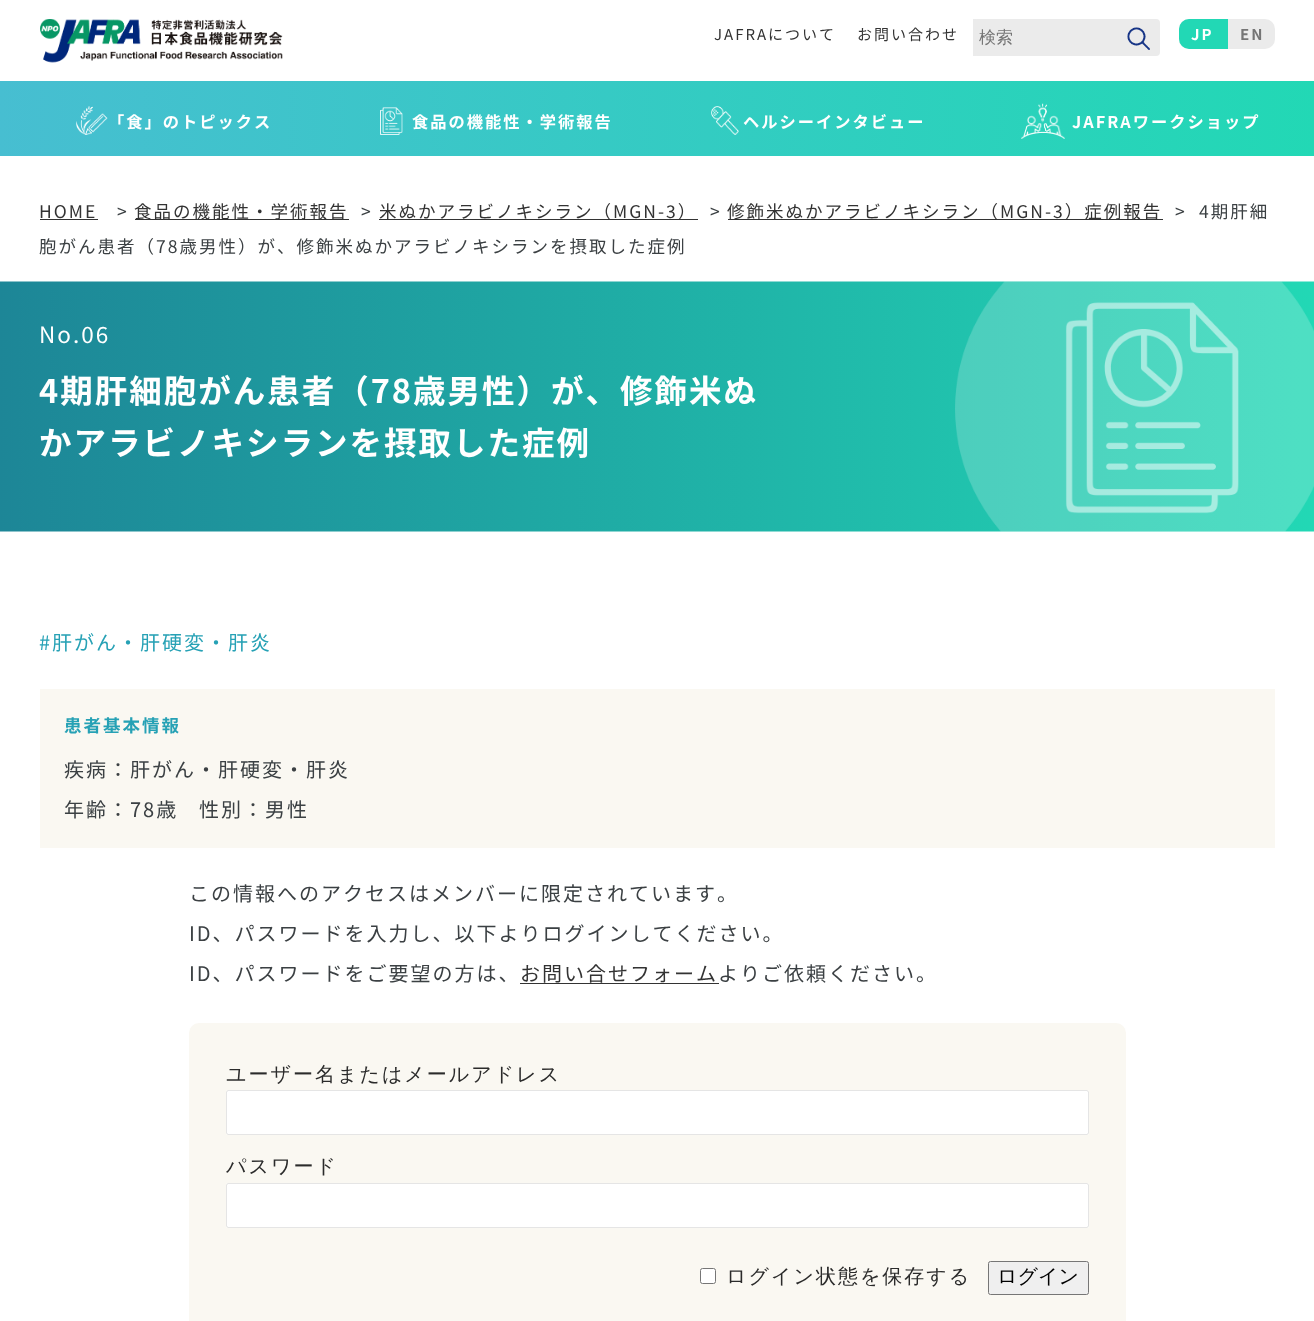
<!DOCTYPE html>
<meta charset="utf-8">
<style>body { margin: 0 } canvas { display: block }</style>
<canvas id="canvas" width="1314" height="1321"></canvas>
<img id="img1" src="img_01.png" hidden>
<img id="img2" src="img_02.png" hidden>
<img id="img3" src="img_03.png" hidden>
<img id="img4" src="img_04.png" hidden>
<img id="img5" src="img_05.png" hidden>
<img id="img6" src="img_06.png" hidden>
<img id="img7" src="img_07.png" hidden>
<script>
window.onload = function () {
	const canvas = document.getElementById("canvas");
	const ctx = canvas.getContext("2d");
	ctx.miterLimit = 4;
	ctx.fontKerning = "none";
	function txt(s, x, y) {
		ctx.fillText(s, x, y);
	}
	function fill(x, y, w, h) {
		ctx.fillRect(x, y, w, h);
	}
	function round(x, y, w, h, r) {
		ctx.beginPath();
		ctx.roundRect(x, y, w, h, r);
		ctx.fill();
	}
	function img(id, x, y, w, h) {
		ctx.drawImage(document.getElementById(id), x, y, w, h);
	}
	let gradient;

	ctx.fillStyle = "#FFFFFF";
	fill(0, 0, 1314, 1321);
	img("img1", 40, 19, 243, 44);
	ctx.fillStyle = "#EBEBEB";
	round(973, 19, 187, 37, 4);
	fill(973, 19, 3, 37);
	img("img2", 1127, 27, 23, 23);
	round(1179, 19, 96, 30, 10);
	ctx.fillStyle = "#22D8B5";
	ctx.beginPath();
	ctx.roundRect(1179, 19, 49, 30, [10, 0, 0, 10]);
	ctx.fill();
	gradient = ctx.createLinearGradient(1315, 119, 0, 119);
	gradient.addColorStop(0, "#22D8B5");
	gradient.addColorStop(1, "#47BED1");
	ctx.fillStyle = gradient;
	fill(0, 81, 1314, 75);
	img("img3", 76, 106, 32, 29);
	img("img4", 380, 107, 23, 28);
	img("img5", 711, 106, 28, 29);
	img("img6", 1021, 103, 44, 36);
	ctx.fillStyle = "#333333";
	fill(40, 219, 58, 1);
	fill(135, 219, 214, 1);
	fill(379, 219, 319, 1);
	fill(728, 219, 435, 1);
	img("img7", 0, 281, 1314, 251);
	ctx.fillStyle = "#FAF8F2";
	fill(40, 689, 1235, 159);
	ctx.fillStyle = "#333333";
	fill(520, 983, 199, 1);
	ctx.fillStyle = "#FAF8F2";
	round(189, 1023, 937, 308, 10);
	ctx.fillStyle = "#FFFFFF";
	round(226, 1090, 863, 45, 2.5);
	ctx.beginPath();
	ctx.roundRect(226.5, 1090.5, 862, 44, 2);
	ctx.strokeStyle = "rgba(0, 0, 0, 0.1)";
	ctx.stroke();
	round(226, 1183, 863, 45, 2.5);
	ctx.beginPath();
	ctx.roundRect(226.5, 1183.5, 862, 44, 2);
	ctx.stroke();
	ctx.beginPath();
	ctx.roundRect(700.5, 1268.5, 15, 15, 2);
	ctx.fill();
	ctx.strokeStyle = "#767676";
	ctx.stroke();
	ctx.fillStyle = "#EFEFEF";
	ctx.beginPath();
	ctx.roundRect(988.5, 1261.5, 100, 33, 2);
	ctx.fill();
	ctx.stroke();
	ctx.letterSpacing = "2px";
	ctx.font = "15px Noto Sans JP";
	ctx.fillStyle = "#333333";
	txt("JAFRAについて", 714, 40);
	txt("お問い合わせ", 857, 40);
	ctx.letterSpacing = "0px";
	ctx.font = "500 17px WenQuanYi Zen Hei";
	ctx.fillStyle = "#757575";
	txt("検索", 979, 43);
	ctx.letterSpacing = "2px";
	ctx.font = "bold 15px Noto Sans JP";
	ctx.fillStyle = "#FFFFFF";
	txt("JP", 1191, 40);
	ctx.fillStyle = "#757575";
	txt("EN", 1240, 40);
	ctx.font = "bold 16.25px Noto Sans JP";
	ctx.fillStyle = "#FFFFFF";
	txt("「食」のトピックス", 108, 128);
	txt("食品の機能性・学術報告", 412, 128);
	txt("ヘルシーインタビュー", 743, 128);
	txt("JAFRAワークショップ", 1072, 128);
	ctx.font = "17.5px Noto Sans JP";
	ctx.fillStyle = "#333333";
	txt("HOME", 39, 218);
	ctx.fillStyle = "#3B4043";
	txt(">", 117, 218);
	ctx.fillStyle = "#333333";
	txt("食品の機能性・学術報告", 134, 218);
	ctx.fillStyle = "#3B4043";
	txt(">", 361, 218);
	ctx.fillStyle = "#333333";
	txt("米ぬかアラビノキシラン（MGN-3）", 379, 218);
	ctx.fillStyle = "#3B4043";
	txt(">", 710, 218);
	ctx.fillStyle = "#333333";
	txt("修飾米ぬかアラビノキシラン（MGN-3）症例報告", 727, 218);
	ctx.fillStyle = "#3B4043";
	txt(">", 1175, 218);
	txt("4期肝細", 1199, 218);
	txt("胞がん患者（78歳男性）が、修飾米ぬかアラビノキシランを摂取した症例", 39, 253);
	ctx.font = "22.5px Noto Sans JP";
	ctx.fillStyle = "#FFFFFF";
	txt("No.06", 39, 343);
	ctx.font = "bold 32.5px Noto Sans JP";
	txt("4期肝細胞がん患者（78歳男性）が、修飾米ぬ", 39, 403);
	txt("かアラビノキシランを摂取した症例", 39, 455);
	ctx.font = "20px Noto Sans JP";
	ctx.fillStyle = "#26A1B5";
	txt("#肝がん・肝硬変・肝炎", 39, 650);
	ctx.font = "bold 17.5px Noto Sans JP";
	txt("患者基本情報", 64, 732);
	ctx.font = "20px Noto Sans JP";
	ctx.fillStyle = "#3B4043";
	txt("疾病：肝がん・肝硬変・肝炎", 64, 777);
	txt("年齢：78歳", 64, 817);
	txt("性別：男性", 199, 817);
	txt("この情報へのアクセスはメンバーに限定されています。", 189, 901);
	txt("ID、パスワードを入力し、以下よりログインしてください。", 189, 941);
	txt("ID、パスワードをご要望の方は、", 189, 981);
	ctx.fillStyle = "#333333";
	txt("お問い合せフォーム", 520, 981);
	ctx.fillStyle = "#3B4043";
	txt("よりご依頼ください。", 718, 981);
	ctx.font = "500 20px WenQuanYi Zen Hei";
	ctx.fillStyle = "#2B2B2B";
	txt("ユーザー名またはメールアドレス", 226, 1081);
	txt("パスワード", 226, 1173);
	txt("ログイン状態を保存する", 726, 1283);
	ctx.letterSpacing = "0px";
	ctx.fillStyle = "#000000";
	txt("ログイン", 997, 1283);
};
</script>
